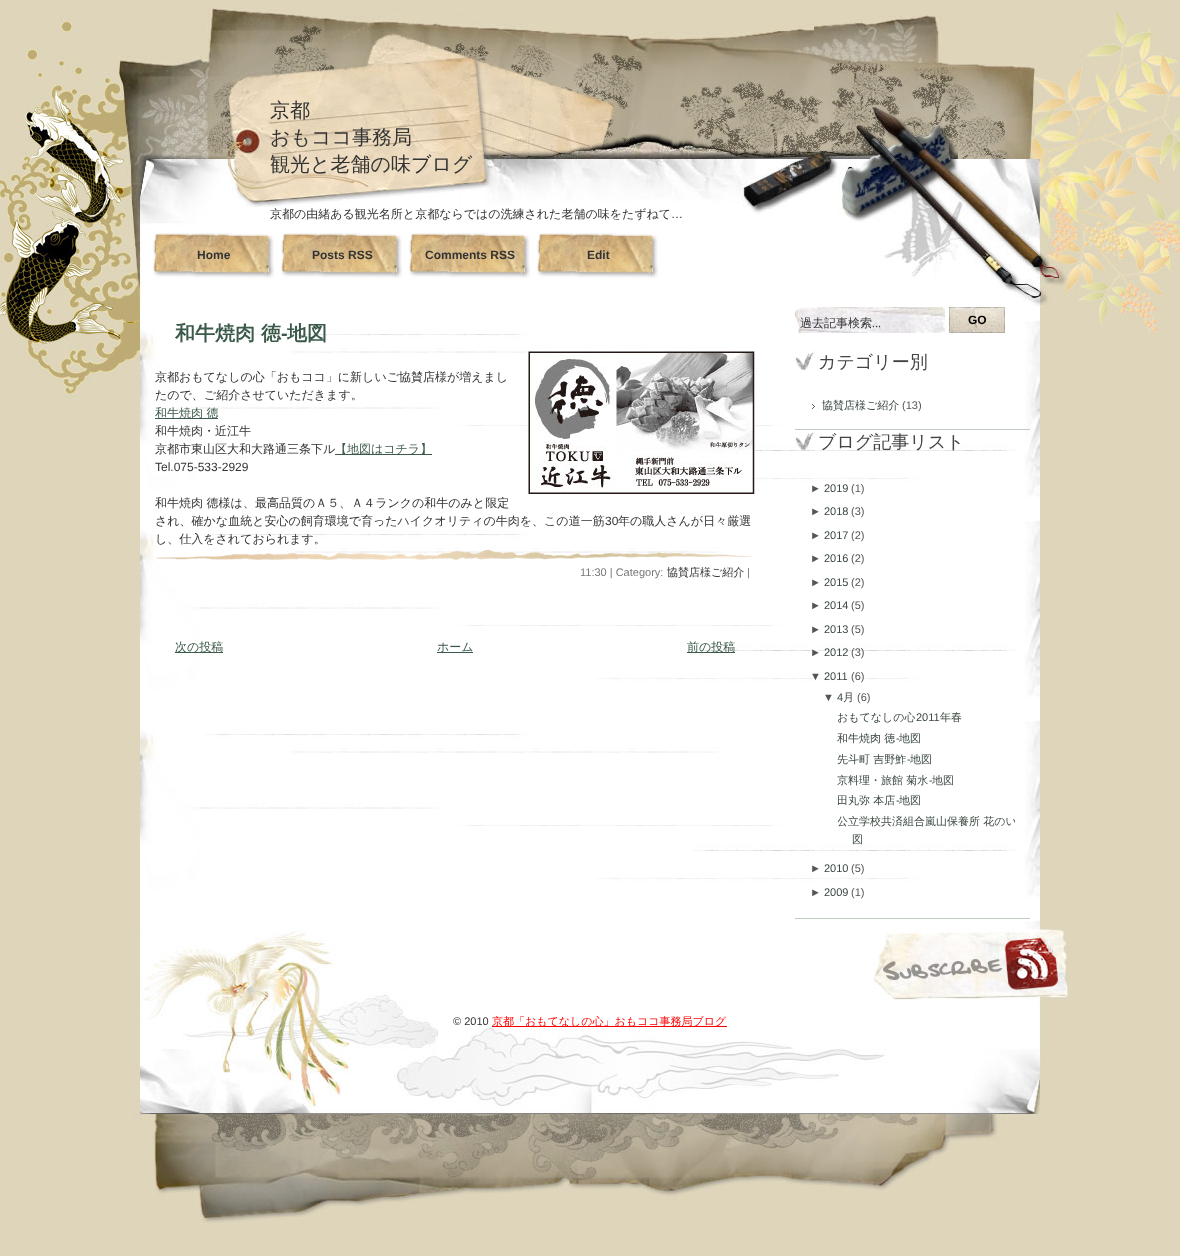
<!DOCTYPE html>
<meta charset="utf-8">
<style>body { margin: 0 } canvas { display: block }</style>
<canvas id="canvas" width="1180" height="1256"></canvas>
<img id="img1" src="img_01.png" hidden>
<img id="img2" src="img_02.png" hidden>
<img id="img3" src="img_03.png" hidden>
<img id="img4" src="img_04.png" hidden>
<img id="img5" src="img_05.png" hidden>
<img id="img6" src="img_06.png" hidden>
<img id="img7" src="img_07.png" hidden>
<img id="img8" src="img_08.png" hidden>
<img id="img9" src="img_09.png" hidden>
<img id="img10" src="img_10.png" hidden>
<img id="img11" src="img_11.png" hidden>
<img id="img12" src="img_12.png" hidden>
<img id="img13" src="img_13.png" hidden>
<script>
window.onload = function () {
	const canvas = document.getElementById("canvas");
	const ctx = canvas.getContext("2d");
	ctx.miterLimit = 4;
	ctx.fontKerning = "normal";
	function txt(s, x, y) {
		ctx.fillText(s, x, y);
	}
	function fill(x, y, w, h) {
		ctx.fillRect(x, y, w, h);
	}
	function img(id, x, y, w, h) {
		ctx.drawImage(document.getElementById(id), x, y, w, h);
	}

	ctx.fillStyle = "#DED5BA";
	fill(0, 0, 1180, 1256);
	img("img1", 0, 11, 1180, 389);
	img("img2", 110, 7, 960, 300);
	img("img3", 153, 233, 122, 45);
	img("img3", 281, 233, 122, 45);
	img("img3", 409, 233, 122, 45);
	img("img3", 537, 233, 122, 45);
	img("img4", 140, 307, 900, 622);
	img("img5", 527, 350, 228, 144);
	ctx.fillStyle = "#3B5A4A";
	fill(155, 418, 63, 1);
	fill(335, 454, 97, 1);
	img("img6", 156, 550, 598, 10);
	fill(175, 652, 48, 1);
	fill(437, 652, 36, 1);
	fill(687, 652, 48, 1);
	img("img7", 795, 307, 150, 26);
	img("img8", 949, 307, 56, 26);
	img("img9", 795, 350, 20, 20);
	ctx.fillStyle = "#BFCCBF";
	fill(795, 429, 235, 1);
	img("img10", 812, 404, 3, 5);
	img("img11", 795, 430, 20, 20);
	fill(795, 918, 235, 1);
	img("img12", 134, 929, 912, 295);
	img("img13", 873, 929, 197, 73);
	ctx.fillStyle = "#FF0000";
	fill(492, 1026, 235, 1);
	ctx.font = "500 20px WenQuanYi Zen Hei";
	ctx.fillStyle = "#333333";
	txt("京都", 270, 117);
	txt("おもココ事務局", 270, 144);
	txt("観光と老舗の味ブログ", 270, 171);
	ctx.font = "500 12px WenQuanYi Zen Hei";
	txt("京都の由緒ある観光名所と京都ならではの洗練された老舗の味をたずねて", 270, 218);
	ctx.font = "12px Liberation Sans";
	txt("…", 671, 218);
	ctx.font = "bold 12px Liberation Sans";
	txt("Home", 197, 259);
	txt("Posts RSS", 312, 259);
	txt("Comments RSS", 425, 259);
	txt("Edit", 587, 259);
	ctx.font = "bold 20px WenQuanYi Zen Hei";
	ctx.fillStyle = "#3B5A4A";
	txt("和牛焼肉 徳", 175, 340);
	ctx.font = "bold 20px Liberation Sans";
	txt("-", 281, 340);
	ctx.font = "bold 20px WenQuanYi Zen Hei";
	txt("地図", 287, 340);
	ctx.font = "500 12px WenQuanYi Zen Hei";
	ctx.fillStyle = "#333333";
	txt("京都おもてなしの心「おもココ」に新しいご協賛店様が増えまし", 155, 381);
	txt("たので、ご紹介させていただきます。", 155, 399);
	ctx.fillStyle = "#3B5A4A";
	txt("和牛焼肉 徳", 155, 417);
	ctx.fillStyle = "#333333";
	txt("和牛焼肉・近江牛", 155, 435);
	txt("京都市東山区大和大路通三条下ル", 155, 453);
	ctx.fillStyle = "#3B5A4A";
	txt("【地図はコチラ】", 335, 453);
	ctx.font = "12px Liberation Sans";
	ctx.fillStyle = "#333333";
	txt("Tel.075-533-2929", 155, 471);
	ctx.font = "500 12px WenQuanYi Zen Hei";
	txt("和牛焼肉 徳様は、最高品質のＡ５、Ａ４ランクの和牛のみと限定", 155, 507);
	txt("され、確かな血統と安心の飼育環境で育ったハイクオリティの牛肉を、この道一筋", 155, 525);
	ctx.font = "12px Liberation Sans";
	txt("30", 605, 525);
	ctx.font = "500 12px WenQuanYi Zen Hei";
	txt("年の職人さんが日々厳選", 618, 525);
	txt("し、仕入をされておられます。", 155, 543);
	ctx.font = "11px Liberation Sans";
	ctx.fillStyle = "#777777";
	txt("11:30 | Category:", 580, 576);
	ctx.font = "500 11px WenQuanYi Zen Hei";
	ctx.fillStyle = "#333333";
	txt("協賛店様ご紹介", 667, 576);
	ctx.font = "11px Liberation Sans";
	ctx.fillStyle = "#777777";
	txt("|", 747, 576);
	ctx.font = "500 12px WenQuanYi Zen Hei";
	ctx.fillStyle = "#3B5A4A";
	txt("次の投稿", 175, 651);
	txt("ホーム", 437, 651);
	txt("前の投稿", 687, 651);
	ctx.fillStyle = "#333333";
	txt("過去記事検索", 800, 327);
	ctx.font = "12px Liberation Serif";
	txt("...", 872, 327);
	ctx.font = "bold 12px Liberation Sans";
	ctx.fillStyle = "#000000";
	txt("GO", 968, 324);
	ctx.font = "500 18px WenQuanYi Zen Hei";
	ctx.fillStyle = "#444444";
	txt("カテゴリー別", 818, 368);
	ctx.font = "500 11px WenQuanYi Zen Hei";
	ctx.fillStyle = "#38463E";
	txt("協賛店様ご紹介", 822, 409);
	ctx.font = "11px Liberation Sans";
	ctx.fillStyle = "#555555";
	txt("(13)", 902, 409);
	ctx.font = "500 18px WenQuanYi Zen Hei";
	ctx.fillStyle = "#444444";
	txt("ブログ記事リスト", 818, 448);
	ctx.font = "11px Liberation Sans";
	ctx.fillStyle = "#555555";
	txt("►", 810, 492);
	ctx.fillStyle = "#38463E";
	txt("2019", 824, 492);
	ctx.fillStyle = "#555555";
	txt("(1)", 851, 492);
	txt("►", 810, 515);
	ctx.fillStyle = "#38463E";
	txt("2018", 824, 515);
	ctx.fillStyle = "#555555";
	txt("(3)", 851, 515);
	txt("►", 810, 539);
	ctx.fillStyle = "#38463E";
	txt("2017", 824, 539);
	ctx.fillStyle = "#555555";
	txt("(2)", 851, 539);
	txt("►", 810, 562);
	ctx.fillStyle = "#38463E";
	txt("2016", 824, 562);
	ctx.fillStyle = "#555555";
	txt("(2)", 851, 562);
	txt("►", 810, 586);
	ctx.fillStyle = "#38463E";
	txt("2015", 824, 586);
	ctx.fillStyle = "#555555";
	txt("(2)", 851, 586);
	txt("►", 810, 609);
	ctx.fillStyle = "#38463E";
	txt("2014", 824, 609);
	ctx.fillStyle = "#555555";
	txt("(5)", 851, 609);
	txt("►", 810, 633);
	ctx.fillStyle = "#38463E";
	txt("2013", 824, 633);
	ctx.fillStyle = "#555555";
	txt("(5)", 851, 633);
	txt("►", 810, 656);
	ctx.fillStyle = "#38463E";
	txt("2012", 824, 656);
	ctx.fillStyle = "#555555";
	txt("(3)", 851, 656);
	txt("▼", 810, 680);
	ctx.fillStyle = "#38463E";
	txt("2011", 824, 680);
	ctx.fillStyle = "#555555";
	txt("(6)", 851, 680);
	txt("▼", 823, 701);
	ctx.fillStyle = "#38463E";
	txt("4", 837, 701);
	ctx.font = "500 11px WenQuanYi Zen Hei";
	txt("月", 843, 701);
	ctx.font = "11px Liberation Sans";
	ctx.fillStyle = "#555555";
	txt("(6)", 857, 701);
	ctx.font = "500 11px WenQuanYi Zen Hei";
	ctx.fillStyle = "#38463E";
	txt("おもてなしの心", 837, 721);
	ctx.font = "11px Liberation Sans";
	txt("2011", 916, 721);
	ctx.font = "500 11px WenQuanYi Zen Hei";
	txt("年春", 940, 721);
	txt("和牛焼肉 徳", 837, 742);
	ctx.font = "11px Liberation Sans";
	txt("-", 896, 742);
	ctx.font = "500 11px WenQuanYi Zen Hei";
	txt("地図", 899, 742);
	txt("先斗町 吉野鮓", 837, 763);
	ctx.font = "11px Liberation Sans";
	txt("-", 907, 763);
	ctx.font = "500 11px WenQuanYi Zen Hei";
	txt("地図", 910, 763);
	txt("京料理・旅館 菊水", 837, 784);
	ctx.font = "11px Liberation Sans";
	txt("-", 929, 784);
	ctx.font = "500 11px WenQuanYi Zen Hei";
	txt("地図", 932, 784);
	txt("田丸弥 本店", 837, 804);
	ctx.font = "11px Liberation Sans";
	txt("-", 896, 804);
	ctx.font = "500 11px WenQuanYi Zen Hei";
	txt("地図", 899, 804);
	ctx.save();
	ctx.beginPath();
	ctx.rect(838, 706, 177, 145);
	ctx.clip();
	txt("公立学校共済組合嵐山保養所 花のい", 837, 825);
	ctx.restore();
	txt("図", 852, 843);
	ctx.font = "11px Liberation Sans";
	ctx.fillStyle = "#555555";
	txt("►", 810, 872);
	ctx.fillStyle = "#38463E";
	txt("2010", 824, 872);
	ctx.fillStyle = "#555555";
	txt("(5)", 851, 872);
	txt("►", 810, 896);
	ctx.fillStyle = "#38463E";
	txt("2009", 824, 896);
	ctx.fillStyle = "#555555";
	txt("(1)", 851, 896);
	ctx.fillStyle = "#333333";
	txt("© 2010", 453, 1025);
	ctx.font = "500 11px WenQuanYi Zen Hei";
	ctx.fillStyle = "#FF0000";
	txt("京都「おもてなしの心」おもココ事務局ブログ", 492, 1025);
};
</script>
